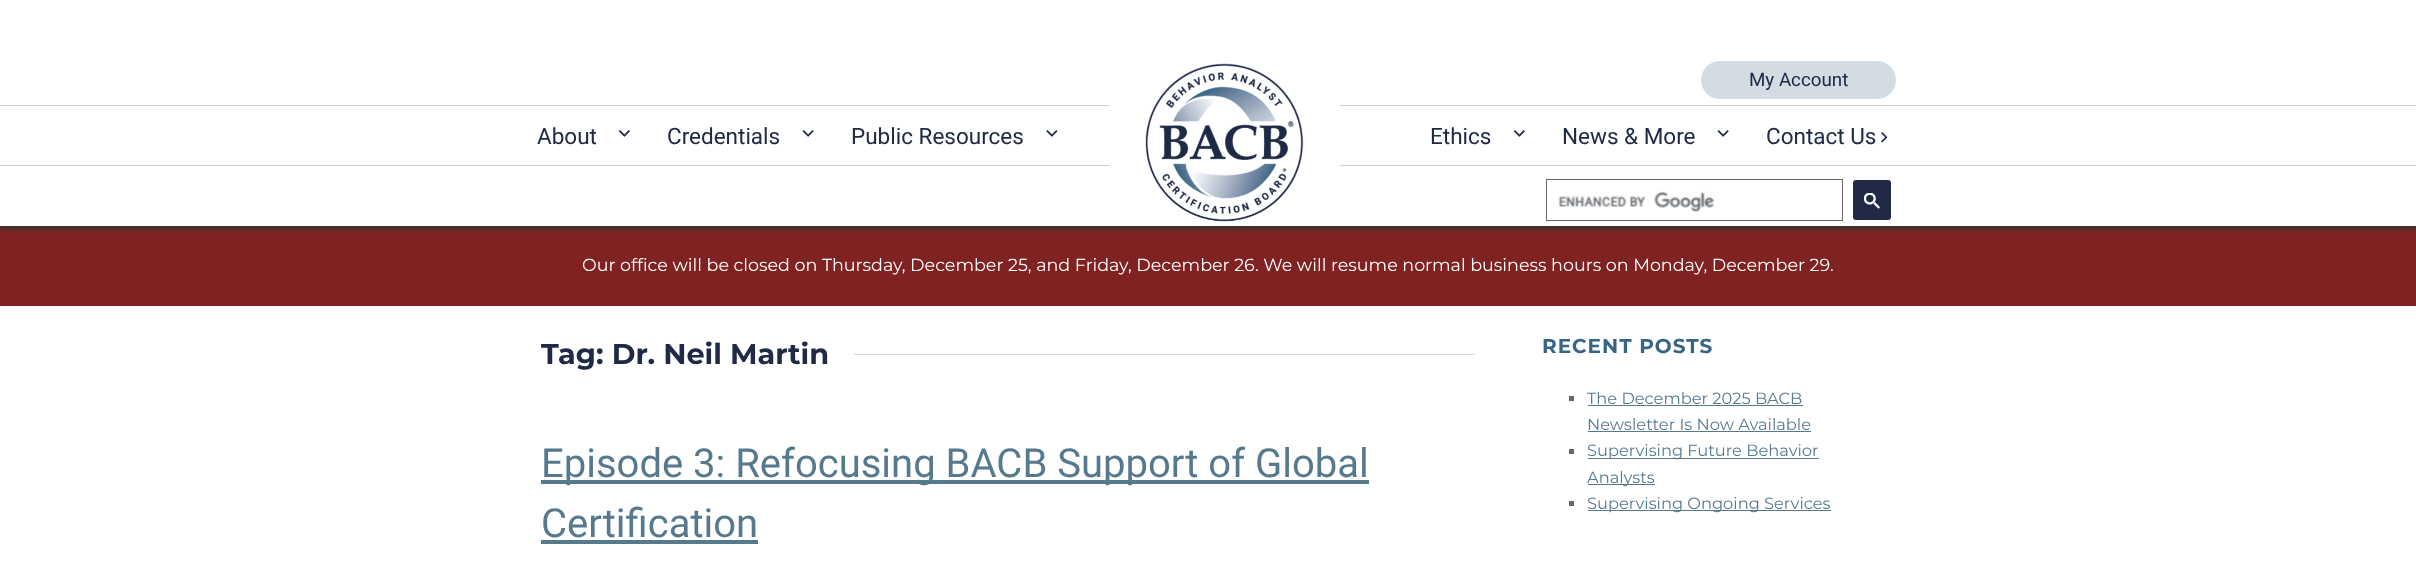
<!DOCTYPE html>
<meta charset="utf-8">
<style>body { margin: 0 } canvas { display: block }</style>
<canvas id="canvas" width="2416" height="587"></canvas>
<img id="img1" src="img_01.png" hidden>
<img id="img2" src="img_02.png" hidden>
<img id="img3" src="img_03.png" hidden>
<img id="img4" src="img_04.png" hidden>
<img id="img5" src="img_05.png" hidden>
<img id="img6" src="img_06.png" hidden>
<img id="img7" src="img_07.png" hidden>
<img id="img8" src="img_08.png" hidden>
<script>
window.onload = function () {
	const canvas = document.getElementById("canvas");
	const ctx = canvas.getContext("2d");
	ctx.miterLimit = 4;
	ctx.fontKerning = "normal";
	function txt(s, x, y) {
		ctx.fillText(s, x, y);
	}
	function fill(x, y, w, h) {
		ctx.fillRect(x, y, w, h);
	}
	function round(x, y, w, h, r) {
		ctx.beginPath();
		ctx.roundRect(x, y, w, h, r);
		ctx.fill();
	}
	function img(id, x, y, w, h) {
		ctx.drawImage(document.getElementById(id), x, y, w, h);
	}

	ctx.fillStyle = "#FFFFFF";
	fill(0, 0, 2416, 587);
	ctx.fillStyle = "#812222";
	fill(0, 226, 2416, 80);
	ctx.fillStyle = "#333333";
	ctx.filter = "blur(2.5px)";
	ctx.beginPath();
	ctx.rect(0, 3, 2416, 226);
	ctx.fill();
	ctx.filter = "none";
	ctx.fillStyle = "#FFFFFF";
	fill(0, 0, 2416, 226);
	ctx.fillStyle = "#CCCCCC";
	fill(0, 105, 2416, 1);
	fill(0, 165, 2416, 1);
	ctx.fillStyle = "#FFFFFF";
	fill(1109, 105, 231, 61);
	img("img1", 1145, 63, 159, 159);
	ctx.fillStyle = "#D2DCE2";
	round(1701, 61, 195, 38, 19);
	img("img2", 618, 130, 12, 7);
	img("img3", 802, 130, 12, 7);
	img("img4", 1046, 130, 12, 7);
	img("img2", 1513, 130, 12, 7);
	img("img3", 1717, 130, 12, 7);
	img("img5", 1881, 132, 7, 11);
	ctx.strokeStyle = "#666666";
	ctx.strokeRect(1546.5, 179.5, 296, 41);
	img("img6", 1558, 191, 157, 21);
	ctx.fillStyle = "#202945";
	ctx.beginPath();
	ctx.roundRect(1853.5, 180.5, 37, 39, 2);
	ctx.fill();
	ctx.strokeStyle = "#202945";
	ctx.stroke();
	img("img7", 1864, 193, 16, 16);
	img("img8", 854, 353, 621, 2);
	ctx.fillStyle = "#57798E";
	fill(541, 480, 828, 4);
	fill(541, 540, 217, 4);
	ctx.fillStyle = "#666666";
	fill(1569, 396, 5, 5);
	ctx.fillStyle = "#57798E";
	fill(1588, 405, 215, 1);
	fill(1588, 431, 223, 1);
	ctx.fillStyle = "#666666";
	fill(1569, 449, 5, 5);
	ctx.fillStyle = "#57798E";
	fill(1588, 458, 231, 1);
	fill(1588, 484, 67, 1);
	ctx.fillStyle = "#666666";
	fill(1569, 501, 5, 5);
	ctx.fillStyle = "#57798E";
	fill(1588, 510, 243, 1);
	ctx.font = "18.75px Roboto";
	ctx.fillStyle = "#202945";
	txt("My Account", 1749, 86);
	ctx.font = "22.5px Roboto";
	txt("About", 537, 144);
	txt("Credentials", 667, 144);
	txt("Public Resources", 851, 144);
	txt("Ethics", 1430, 144);
	txt("News & More", 1562, 144);
	txt("Contact Us", 1766, 144);
	ctx.font = "17.5px Montserrat";
	ctx.fillStyle = "#FFFFFF";
	txt("Our office will be closed on Thursday, December 25, and Friday, December 26. We will resume normal business hours on Monday, December 29.", 582, 271);
	ctx.font = "bold 28.75px Montserrat";
	ctx.fillStyle = "#202945";
	txt("Tag: Dr. Neil Martin", 541, 364);
	ctx.font = "40px Roboto";
	ctx.fillStyle = "#57798E";
	txt("Episode 3: Refocusing BACB Support of Global", 541, 477);
	txt("Certification", 541, 537);
	ctx.letterSpacing = "1px";
	ctx.font = "bold 20px Montserrat";
	ctx.fillStyle = "#376585";
	txt("RECENT POSTS", 1542, 353);
	ctx.letterSpacing = "0px";
	ctx.font = "16.25px Montserrat";
	ctx.fillStyle = "#57798E";
	txt("The December 2025 BACB", 1587, 404);
	txt("Newsletter Is Now Available", 1587, 430);
	txt("Supervising Future Behavior", 1587, 456);
	txt("Analysts", 1587, 483);
	txt("Supervising Ongoing Services", 1587, 509);
};
</script>
